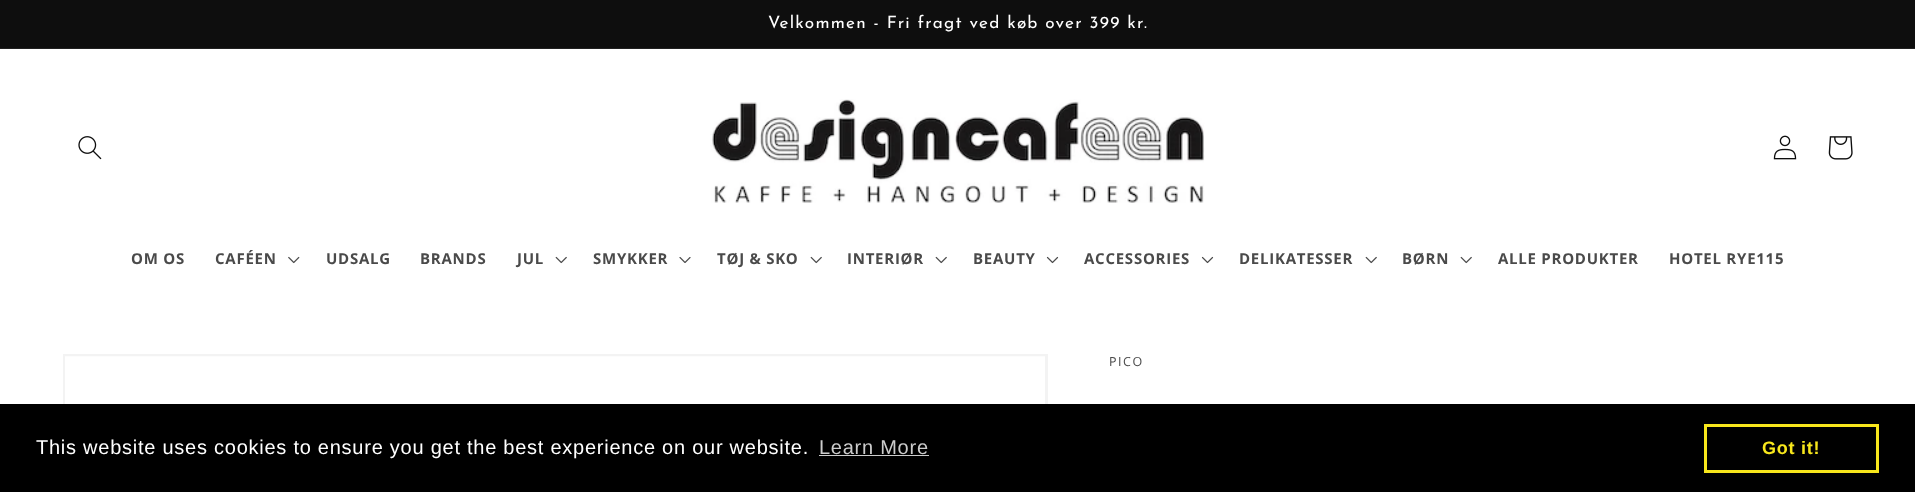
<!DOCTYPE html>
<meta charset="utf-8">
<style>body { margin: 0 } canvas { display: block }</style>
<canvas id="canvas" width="1915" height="492"></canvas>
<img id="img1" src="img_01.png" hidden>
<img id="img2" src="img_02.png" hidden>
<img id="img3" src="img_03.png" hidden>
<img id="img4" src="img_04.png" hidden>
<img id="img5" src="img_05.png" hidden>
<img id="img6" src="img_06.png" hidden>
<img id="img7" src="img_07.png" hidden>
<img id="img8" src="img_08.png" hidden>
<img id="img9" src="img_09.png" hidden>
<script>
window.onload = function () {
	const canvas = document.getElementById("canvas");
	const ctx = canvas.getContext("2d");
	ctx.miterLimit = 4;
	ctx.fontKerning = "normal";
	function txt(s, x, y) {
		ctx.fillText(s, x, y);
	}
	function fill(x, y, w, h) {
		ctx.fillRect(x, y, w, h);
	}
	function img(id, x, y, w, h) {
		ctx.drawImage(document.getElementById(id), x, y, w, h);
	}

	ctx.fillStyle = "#FFFFFF";
	fill(0, 0, 1915, 492);
	ctx.fillStyle = "#0E0E0E";
	fill(0, 0, 1915, 48);
	ctx.fillStyle = "#212121";
	fill(0, 48, 1915, 1);
	img("img1", 78, 136, 24, 24);
	img("img2", 710, 99, 495, 104);
	img("img3", 1773, 135, 24, 25);
	img("img4", 1828, 136, 25, 24);
	img("img5", 288, 256, 12, 8);
	img("img6", 555, 256, 12, 8);
	img("img7", 679, 257, 12, 6);
	img("img6", 810, 256, 12, 8);
	img("img6", 935, 256, 12, 8);
	img("img8", 1046, 256, 13, 8);
	img("img8", 1201, 256, 13, 8);
	img("img6", 1365, 256, 12, 8);
	img("img6", 1460, 256, 12, 8);
	ctx.strokeStyle = "#F3F3F3";
	ctx.lineWidth = 3;
	ctx.strokeRect(64.5, 355.5, 982, 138);
	img("img9", 65, 356, 980, 48);
	ctx.fillStyle = "#000000";
	fill(0, 404, 1915, 88);
	ctx.fillStyle = "#CCCCCC";
	fill(819, 455, 110, 1);
	ctx.strokeStyle = "#F8E71C";
	ctx.strokeRect(1705.5, 425.5, 172, 46);
	ctx.letterSpacing = "1.25px";
	ctx.font = "17.1px Josefin Sans";
	ctx.fillStyle = "#FFFFFF";
	txt("Velkommen - Fri fragt ved køb over 399 kr.", 768, 28);
	ctx.letterSpacing = "0.75px";
	ctx.font = "bold 15px Open Sans";
	ctx.fillStyle = "#4A4A4A";
	txt("OM OS", 131, 264);
	txt("CAFÉEN", 215, 264);
	txt("UDSALG", 326, 264);
	txt("BRANDS", 420, 264);
	txt("JUL", 517, 264);
	txt("SMYKKER", 593, 264);
	txt("TØJ & SKO", 717, 264);
	txt("INTERIØR", 847, 264);
	txt("BEAUTY", 973, 264);
	txt("ACCESSORIES", 1084, 264);
	txt("DELIKATESSER", 1239, 264);
	txt("BØRN", 1402, 264);
	txt("ALLE PRODUKTER", 1498, 264);
	txt("HOTEL RYE115", 1669, 264);
	ctx.letterSpacing = "1.5px";
	ctx.font = "12.5px Open Sans";
	txt("PICO", 1109, 366);
	ctx.letterSpacing = "0.75px";
	ctx.font = "20px Liberation Sans";
	ctx.fillStyle = "#FFFFFF";
	txt("This website uses cookies to ensure you get the best experience on our website.", 36, 454);
	ctx.fillStyle = "#CCCCCC";
	txt("Learn More", 819, 454);
	ctx.font = "bold 18px Liberation Sans";
	ctx.fillStyle = "#F8E71C";
	txt("Got it!", 1762, 454);
};
</script>
